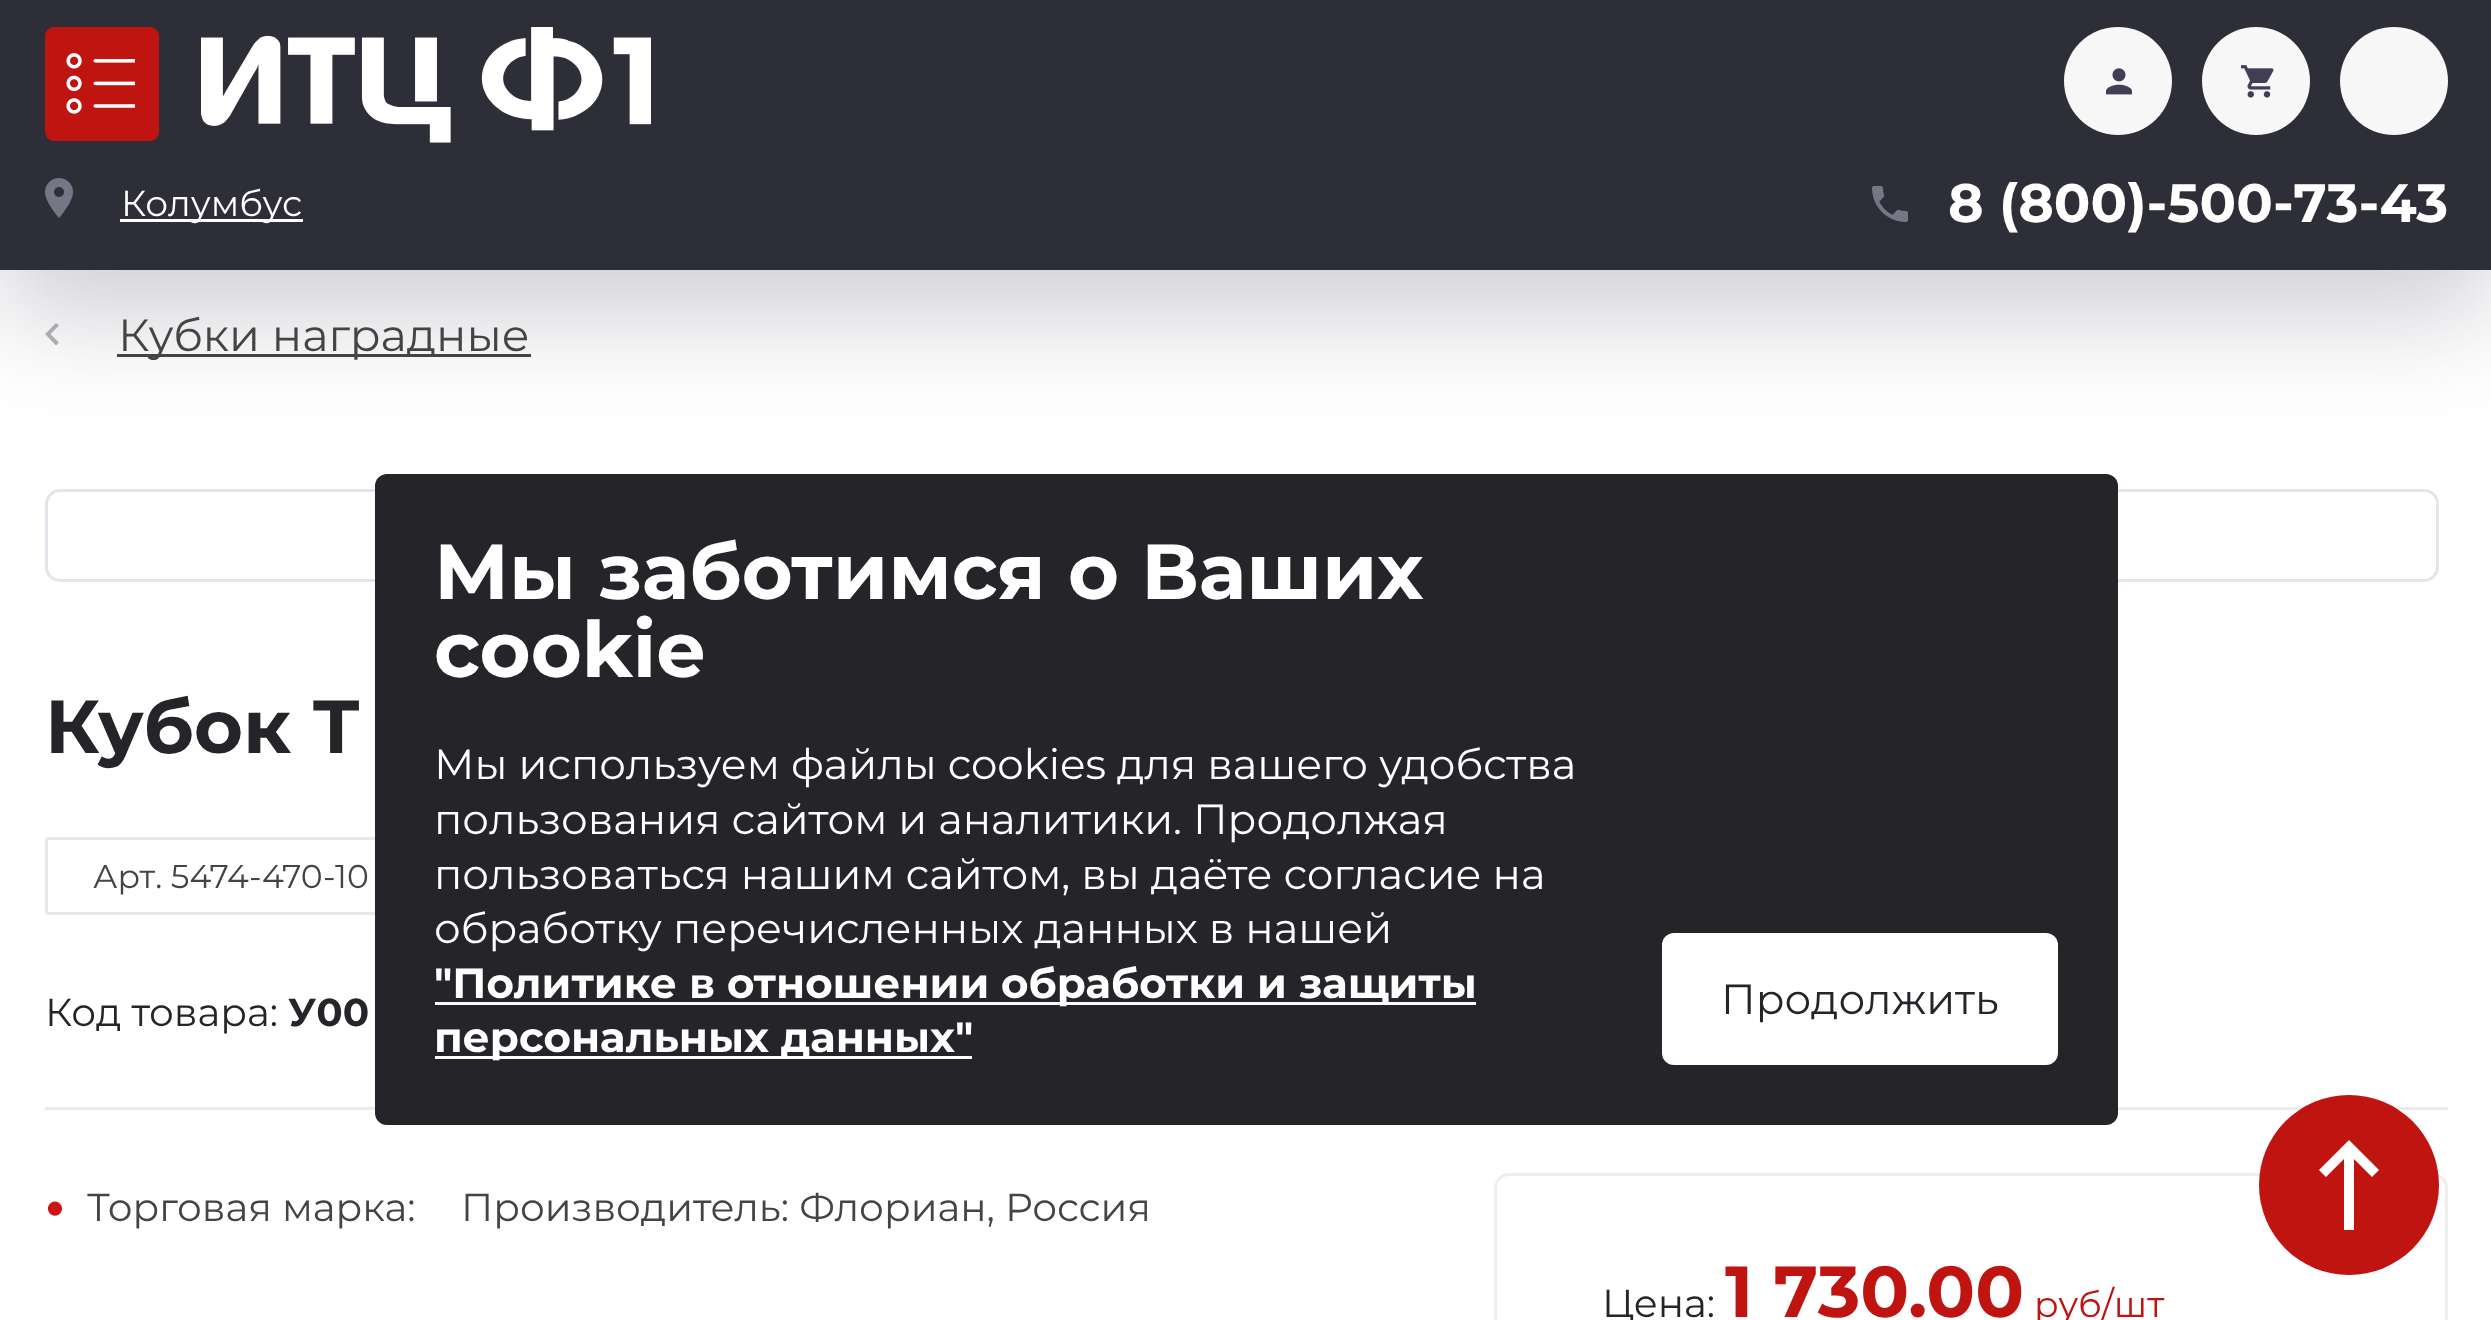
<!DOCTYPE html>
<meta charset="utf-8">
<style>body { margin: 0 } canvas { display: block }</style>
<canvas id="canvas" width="2491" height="1320"></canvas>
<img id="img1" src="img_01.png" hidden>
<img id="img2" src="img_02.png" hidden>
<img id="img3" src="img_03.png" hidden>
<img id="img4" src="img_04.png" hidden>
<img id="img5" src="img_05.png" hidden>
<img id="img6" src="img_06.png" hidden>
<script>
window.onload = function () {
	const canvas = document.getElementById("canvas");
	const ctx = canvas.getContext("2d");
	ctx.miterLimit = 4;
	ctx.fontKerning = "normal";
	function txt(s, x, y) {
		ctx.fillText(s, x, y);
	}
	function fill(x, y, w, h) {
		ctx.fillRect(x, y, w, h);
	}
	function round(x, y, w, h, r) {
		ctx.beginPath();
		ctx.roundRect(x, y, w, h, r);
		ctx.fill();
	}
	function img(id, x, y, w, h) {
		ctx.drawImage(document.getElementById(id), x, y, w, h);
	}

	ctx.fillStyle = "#FFFFFF";
	fill(0, 0, 2491, 1320);
	ctx.fillStyle = "#B6B6B6";
	ctx.beginPath();
	ctx.moveTo(59, 325.5);
	ctx.lineTo(50.5, 334);
	ctx.lineTo(59, 342.5);
	ctx.lineTo(56, 345.5);
	ctx.lineTo(45, 334);
	ctx.lineTo(56, 323);
	ctx.closePath();
	ctx.fill();
	ctx.fillStyle = "#454445";
	fill(117, 354, 414, 3);
	ctx.fillStyle = "rgba(65, 63, 86, 0.25)";
	ctx.filter = "blur(52.5px)";
	ctx.beginPath();
	ctx.rect(0, 45, 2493, 270);
	ctx.fill();
	ctx.filter = "none";
	ctx.fillStyle = "#2E2E38";
	fill(0, 0, 2491, 270);
	ctx.fillStyle = "#C01411";
	round(45, 27, 114, 114, 9);
	img("img1", 66, 53, 69, 61);
	img("img2", 201, 27, 450, 116);
	ctx.fillStyle = "#F7F7F7";
	ctx.beginPath();
	ctx.arc(2118, 81, 54, 0, Math.PI * 2);
	ctx.fill();
	img("img3", 2106, 68, 26, 27);
	ctx.beginPath();
	ctx.arc(2256, 81, 54, 0, Math.PI * 2);
	ctx.fill();
	img("img4", 2241, 65, 33, 33);
	ctx.beginPath();
	ctx.arc(2394, 81, 54, 0, Math.PI * 2);
	ctx.fill();
	img("img5", 45, 178, 28, 40);
	ctx.fillStyle = "#FFFFFF";
	fill(120, 219, 183, 3);
	img("img6", 1872, 186, 36, 36);
	ctx.beginPath();
	ctx.roundRect(46.5, 490.5, 2391, 90, 13.5);
	ctx.strokeStyle = "#E3E5EC";
	ctx.lineWidth = 3;
	ctx.stroke();
	ctx.beginPath();
	ctx.roundRect(46.5, 838.5, 390, 75, 1.5);
	ctx.strokeStyle = "#E8E8E8";
	ctx.stroke();
	ctx.fillStyle = "#EBEBEB";
	fill(45, 1107, 2403, 3);
	ctx.beginPath();
	ctx.roundRect(1495.5, 1174.5, 951, 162, 13.5);
	ctx.strokeStyle = "#EEEEEE";
	ctx.stroke();
	ctx.fillStyle = "#242429";
	round(375, 474, 1743, 651, 12);
	ctx.fillStyle = "#FFFFFF";
	fill(435, 1002, 1041, 3);
	fill(435, 1056, 537, 3);
	round(1662, 933, 396, 132, 12);
	ctx.fillStyle = "#C01411";
	ctx.beginPath();
	ctx.arc(2349, 1185, 90, 0, Math.PI * 2);
	ctx.fill();
	ctx.fillStyle = "#FFFFFF";
	ctx.beginPath();
	ctx.moveTo(2344, 1230);
	ctx.lineTo(2344, 1159);
	ctx.lineTo(2326, 1177);
	ctx.lineTo(2319, 1170);
	ctx.lineTo(2349, 1140);
	ctx.lineTo(2379, 1170);
	ctx.lineTo(2372, 1177);
	ctx.lineTo(2354, 1159);
	ctx.lineTo(2354, 1230);
	ctx.closePath();
	ctx.fill();
	ctx.font = "36px Montserrat";
	txt("Колумбус", 121, 216);
	ctx.font = "bold 54px Montserrat";
	txt("8 (800)-500-73-43", 1948, 222);
	ctx.font = "45px Montserrat";
	ctx.fillStyle = "#454445";
	txt("Кубки наградные", 118, 351);
	ctx.font = "bold 75px Montserrat";
	ctx.fillStyle = "#242429";
	txt("Кубок Т", 45, 753);
	ctx.font = "33px Montserrat";
	ctx.fillStyle = "#454445";
	txt("Арт. 5474-470-10", 93, 888);
	ctx.font = "39px Montserrat";
	ctx.fillStyle = "#242429";
	txt("Код товара:", 45, 1026);
	ctx.font = "bold 39px Montserrat";
	txt("У00", 288, 1026);
	ctx.font = "33px Liberation Sans";
	ctx.fillStyle = "#CD1516";
	txt("●", 45, 1218);
	ctx.font = "39px Montserrat";
	ctx.fillStyle = "#454445";
	txt("Торговая марка:", 87, 1221);
	txt("Производитель: Флориан, Россия", 461, 1221);
	ctx.fillStyle = "#242429";
	txt("Цена:", 1602, 1317);
	ctx.font = "bold 72px Montserrat";
	ctx.fillStyle = "#C01411";
	txt("1 730.00", 1725, 1317);
	ctx.font = "36px Montserrat";
	txt("руб/шт", 2034, 1317);
	ctx.font = "bold 78px Montserrat";
	ctx.fillStyle = "#FFFFFF";
	txt("Мы заботимся о Ваших", 434, 599);
	txt("cookie", 434, 677);
	ctx.font = "42px Montserrat";
	txt("Мы используем файлы cookies для вашего удобства", 434, 779);
	txt("пользования сайтом и аналитики. Продолжая", 434, 834);
	txt("пользоваться нашим сайтом, вы даёте согласие на", 434, 889);
	txt("обработку перечисленных данных в нашей", 434, 943);
	ctx.font = "bold 42px Montserrat";
	txt("\"Политике в отношении обработки и защиты", 434, 998);
	txt("персональных данных\"", 434, 1052);
	ctx.font = "42px Montserrat";
	ctx.fillStyle = "#242429";
	txt("Продолжить", 1721, 1014);
};
</script>
